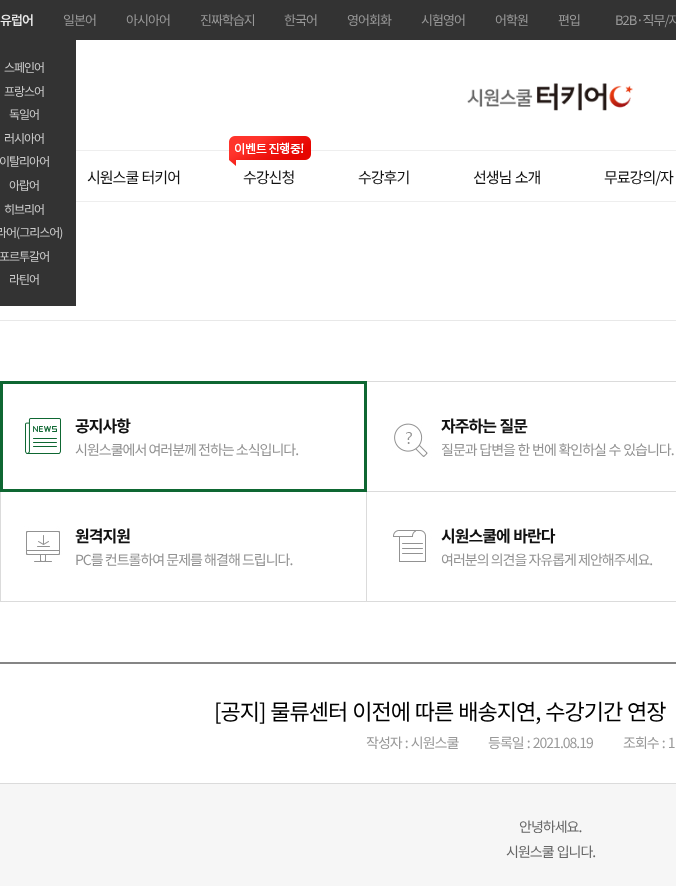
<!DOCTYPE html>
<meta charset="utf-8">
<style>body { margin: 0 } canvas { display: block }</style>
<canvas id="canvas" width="676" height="886"></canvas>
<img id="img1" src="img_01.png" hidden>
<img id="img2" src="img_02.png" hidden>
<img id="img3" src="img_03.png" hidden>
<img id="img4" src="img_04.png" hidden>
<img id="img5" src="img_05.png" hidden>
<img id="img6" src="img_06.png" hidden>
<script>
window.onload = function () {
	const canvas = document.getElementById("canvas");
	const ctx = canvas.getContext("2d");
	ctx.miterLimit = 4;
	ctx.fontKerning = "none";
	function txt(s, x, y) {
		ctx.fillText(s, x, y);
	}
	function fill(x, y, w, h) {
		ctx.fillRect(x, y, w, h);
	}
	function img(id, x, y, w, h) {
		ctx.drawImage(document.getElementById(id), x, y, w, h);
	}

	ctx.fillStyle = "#FFFFFF";
	fill(0, 0, 676, 886);
	ctx.fillStyle = "#333333";
	fill(0, 0, 676, 40);
	fill(0, 40, 76, 266);
	img("img1", 467, 83, 166, 28);
	ctx.fillStyle = "#EEEEEE";
	fill(76, 150, 600, 1);
	fill(76, 201, 600, 1);
	img("img2", 229, 136, 82, 30);
	ctx.fillStyle = "#E8E8E8";
	fill(0, 320, 676, 1);
	img("img3", 0, 381, 367, 111);
	img("img4", 367, 381, 309, 111);
	img("img5", 0, 492, 367, 110);
	img("img6", 367, 530, 309, 72);
	ctx.fillStyle = "#858585";
	fill(0, 662, 676, 2);
	ctx.fillStyle = "#DBDBDB";
	fill(0, 783, 676, 1);
	ctx.fillStyle = "#F6F6F6";
	fill(0, 784, 676, 102);
	ctx.letterSpacing = "-1px";
	ctx.font = "500 13px Noto Sans KR";
	ctx.fillStyle = "#EEEEEE";
	txt("유럽어", 0, 25);
	ctx.font = "12px Noto Sans KR";
	ctx.fillStyle = "#CCCCCC";
	txt("스페인어", 4, 72);
	txt("프랑스어", 4, 96);
	txt("독일어", 9, 119);
	txt("러시아어", 4, 143);
	txt("이탈리아어", -1, 166);
	txt("아랍어", 9, 190);
	txt("히브리어", 4, 214);
	txt("라어(그리스어)", -4, 237);
	txt("포르투갈어", -1, 261);
	txt("라틴어", 9, 284);
	ctx.font = "13px Noto Sans KR";
	ctx.fillStyle = "#999999";
	txt("일본어", 63, 25);
	txt("아시아어", 126, 25);
	txt("진짜학습지", 200, 25);
	txt("한국어", 284, 25);
	txt("영어회화", 347, 25);
	txt("시험영어", 421, 25);
	txt("어학원", 495, 25);
	txt("편입", 558, 25);
	txt("B2B·직무/자", 615, 25);
	ctx.wordSpacing = "1px";
	ctx.font = "15px Noto Sans KR";
	ctx.fillStyle = "#111111";
	txt("시원스쿨 터키어", 87, 183);
	ctx.wordSpacing = "0px";
	txt("수강신청", 243, 183);
	txt("수강후기", 358, 183);
	ctx.wordSpacing = "1px";
	txt("선생님 소개", 473, 183);
	ctx.wordSpacing = "0px";
	txt("무료강의/자", 604, 183);
	ctx.font = "bold 16px Noto Sans KR";
	txt("공지사항", 75, 432);
	ctx.font = "14px Noto Sans KR";
	ctx.fillStyle = "#929292";
	txt("시원스쿨에서 여러분께 전하는 소식입니다.", 75, 455);
	ctx.wordSpacing = "1px";
	ctx.font = "bold 16px Noto Sans KR";
	ctx.fillStyle = "#111111";
	txt("자주하는 질문", 441, 432);
	ctx.wordSpacing = "0.5px";
	ctx.font = "14px Noto Sans KR";
	ctx.fillStyle = "#929292";
	txt("질문과 답변을 한 번에 확인하실 수 있습니다.", 441, 455);
	ctx.wordSpacing = "0px";
	ctx.font = "bold 16px Noto Sans KR";
	ctx.fillStyle = "#111111";
	txt("원격지원", 75, 542);
	ctx.font = "14px Noto Sans KR";
	ctx.fillStyle = "#929292";
	txt("PC를 컨트롤하여 문제를 해결해 드립니다.", 75, 565);
	ctx.wordSpacing = "1px";
	ctx.font = "bold 16px Noto Sans KR";
	ctx.fillStyle = "#111111";
	txt("시원스쿨에 바란다", 441, 542);
	ctx.wordSpacing = "0px";
	ctx.font = "14px Noto Sans KR";
	ctx.fillStyle = "#929292";
	txt("여러분의 의견을 자유롭게 제안해주세요.", 441, 565);
	ctx.wordSpacing = "1px";
	ctx.font = "22px Noto Sans KR";
	ctx.fillStyle = "#000000";
	txt("[공지] 물류센터 이전에 따른 배송지연, 수강기간 연장", 214, 720);
	ctx.font = "14px Noto Sans KR";
	ctx.fillStyle = "#999999";
	txt("작성자 : 시원스쿨", 366, 748);
	txt("등록일 : 2021.08.19", 488, 748);
	txt("조회수 : 1", 623, 748);
	ctx.wordSpacing = "0px";
	ctx.fillStyle = "#666666";
	txt("안녕하세요.", 519, 832);
	ctx.wordSpacing = "1px";
	txt("시원스쿨 입니다.", 506, 857);
};
</script>
